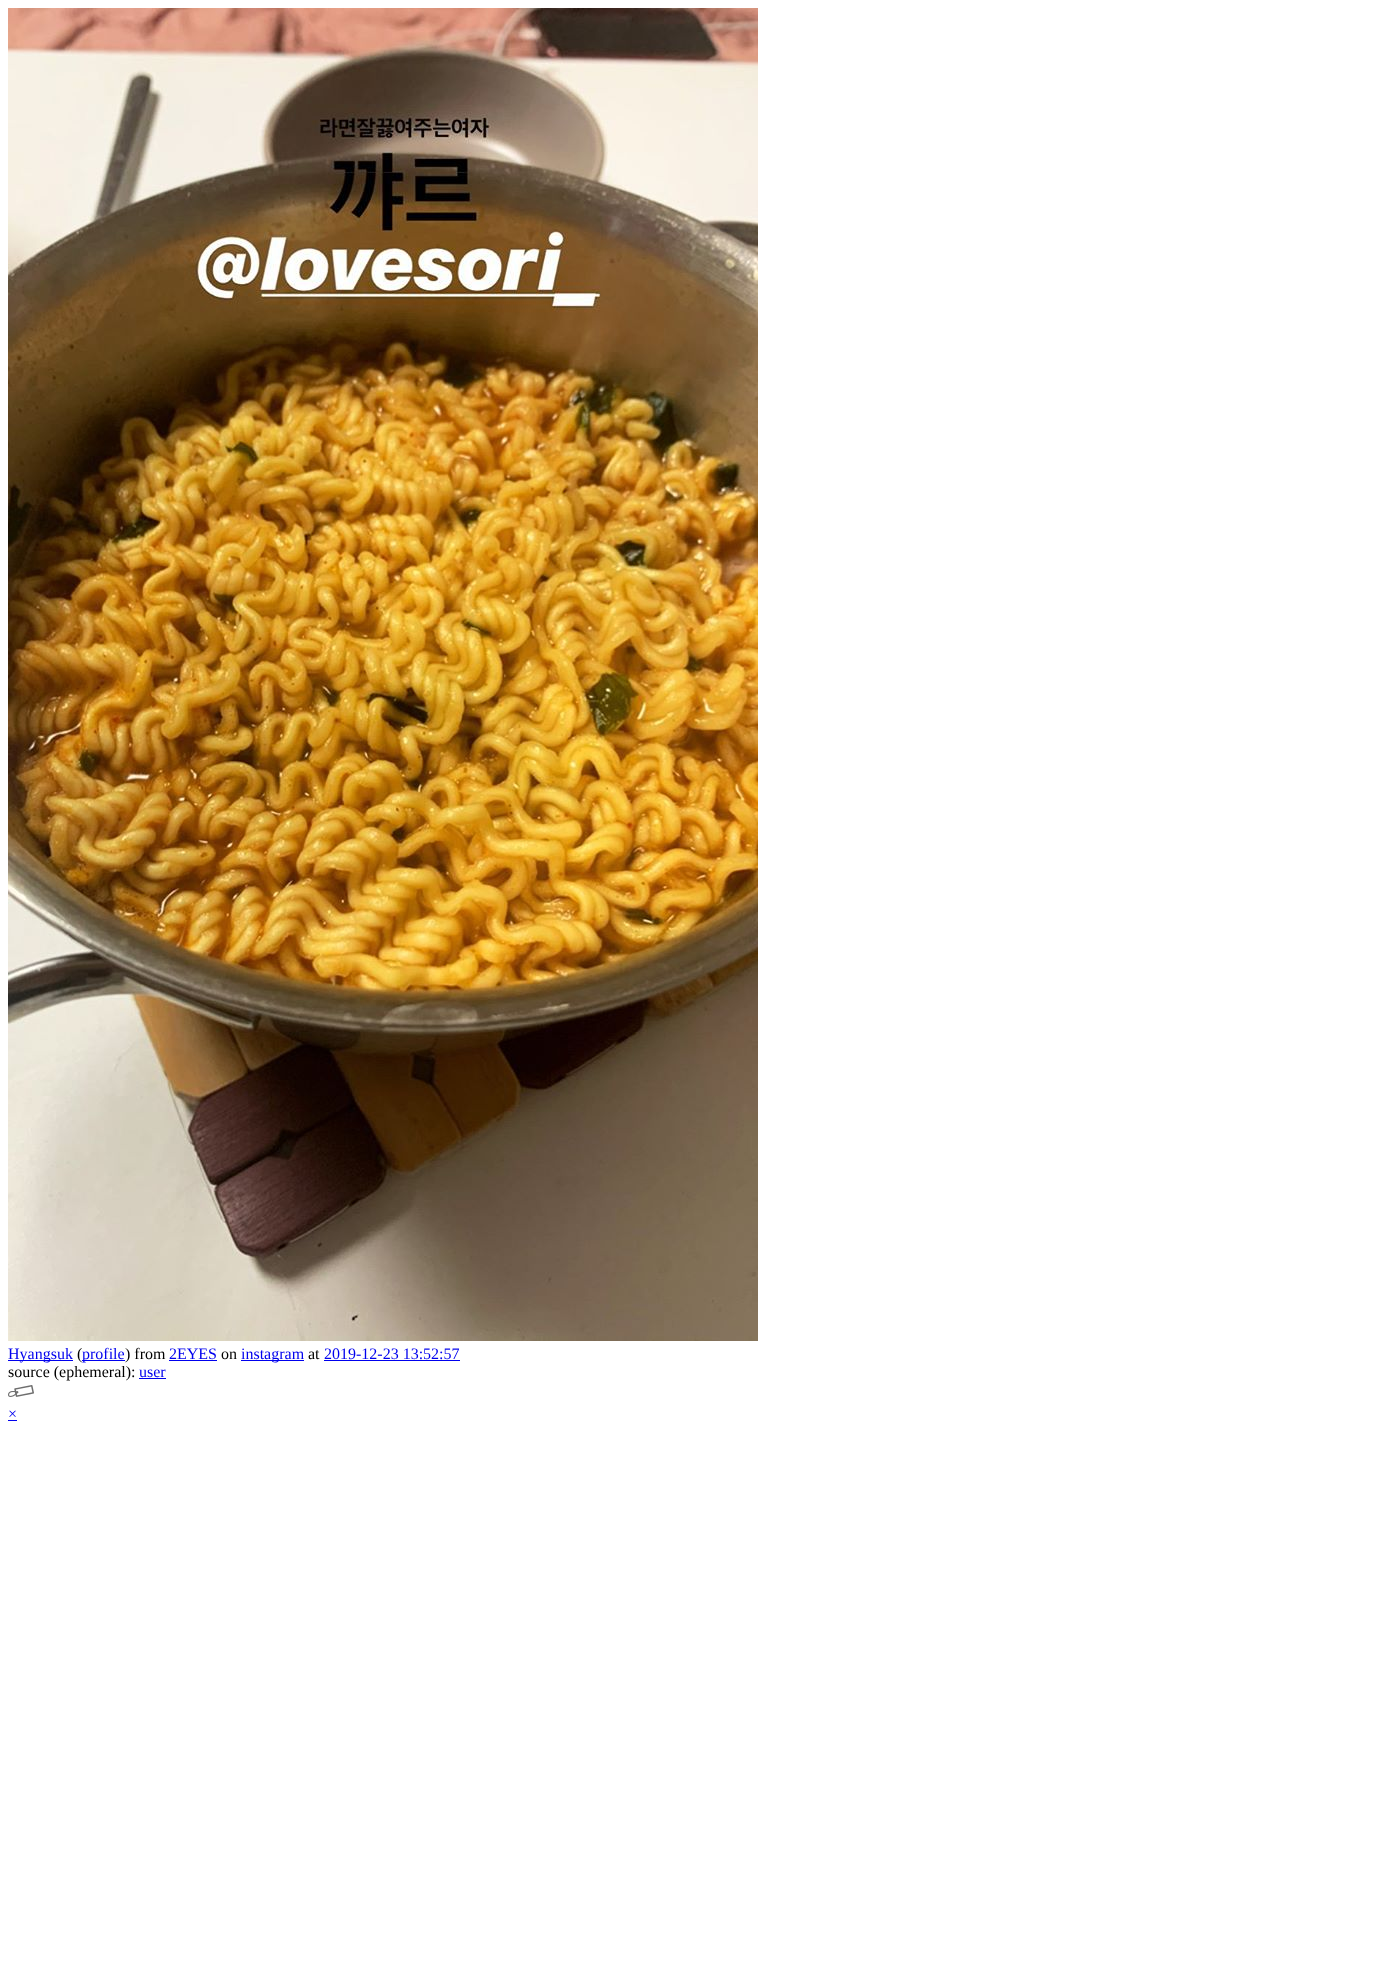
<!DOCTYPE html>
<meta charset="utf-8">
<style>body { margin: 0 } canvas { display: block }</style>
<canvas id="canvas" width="1388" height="1972"></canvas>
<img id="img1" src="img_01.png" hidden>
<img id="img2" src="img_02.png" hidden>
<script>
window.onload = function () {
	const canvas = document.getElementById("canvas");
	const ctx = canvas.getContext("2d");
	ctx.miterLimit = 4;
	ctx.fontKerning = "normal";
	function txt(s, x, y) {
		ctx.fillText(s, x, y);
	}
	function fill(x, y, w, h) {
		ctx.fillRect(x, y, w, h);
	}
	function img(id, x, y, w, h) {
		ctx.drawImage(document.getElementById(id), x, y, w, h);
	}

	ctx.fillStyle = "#FFFFFF";
	fill(0, 0, 1388, 1972);
	img("img1", 8, 8, 750, 1333);
	ctx.fillStyle = "#0000EE";
	fill(8, 1360, 65, 1);
	fill(82, 1360, 43, 1);
	fill(169, 1360, 48, 1);
	fill(241, 1360, 63, 1);
	fill(324, 1360, 136, 1);
	fill(139, 1378, 27, 1);
	img("img2", 8, 1385, 26, 12);
	fill(8, 1420, 9, 1);
	ctx.font = "16px Liberation Serif";
	txt("Hyangsuk", 8, 1359);
	ctx.fillStyle = "#000000";
	txt("(", 77, 1359);
	ctx.fillStyle = "#0000EE";
	txt("profile", 82, 1359);
	ctx.fillStyle = "#000000";
	txt(") from", 125, 1359);
	ctx.fillStyle = "#0000EE";
	txt("2EYES", 169, 1359);
	ctx.fillStyle = "#000000";
	txt("on", 221, 1359);
	ctx.fillStyle = "#0000EE";
	txt("instagram", 241, 1359);
	ctx.fillStyle = "#000000";
	txt("at", 308, 1359);
	ctx.fillStyle = "#0000EE";
	txt("2019-12-23 13:52:57", 324, 1359);
	ctx.fillStyle = "#000000";
	txt("source (ephemeral):", 8, 1377);
	ctx.fillStyle = "#0000EE";
	txt("user", 139, 1377);
	txt("×", 8, 1419);
};
</script>
